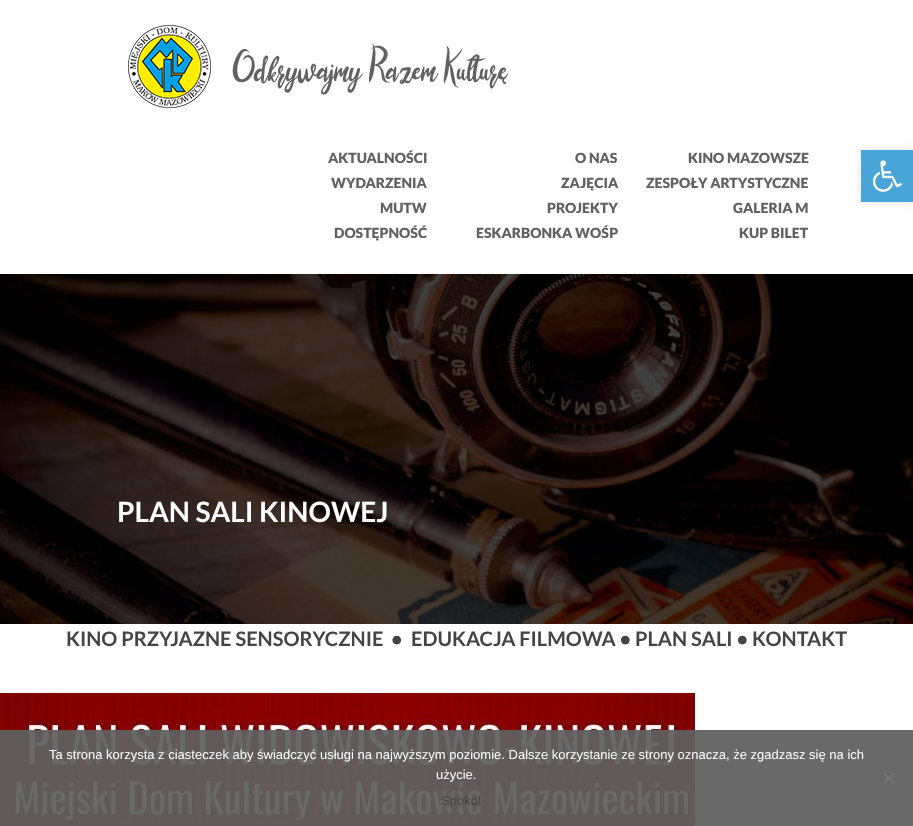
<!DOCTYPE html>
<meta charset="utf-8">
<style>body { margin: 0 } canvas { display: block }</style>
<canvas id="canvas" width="913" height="826"></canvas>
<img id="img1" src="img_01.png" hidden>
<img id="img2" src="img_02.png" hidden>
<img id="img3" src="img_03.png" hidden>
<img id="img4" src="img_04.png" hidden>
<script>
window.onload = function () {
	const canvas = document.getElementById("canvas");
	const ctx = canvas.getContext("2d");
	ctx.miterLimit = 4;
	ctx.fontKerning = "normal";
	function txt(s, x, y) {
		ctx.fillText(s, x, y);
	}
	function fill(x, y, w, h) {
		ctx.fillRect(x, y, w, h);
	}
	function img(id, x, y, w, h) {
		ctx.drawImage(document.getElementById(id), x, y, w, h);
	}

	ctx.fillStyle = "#FFFFFF";
	fill(0, 0, 913, 826);
	ctx.fillStyle = "#FAFAFA";
	fill(97, 273, 750, 1);
	img("img1", 128, 25, 381, 83);
	ctx.fillStyle = "rgba(0, 0, 0, 0.1)";
	ctx.filter = "blur(5px)";
	ctx.beginPath();
	ctx.rect(861, 150, 52, 52);
	ctx.fill();
	ctx.filter = "none";
	ctx.fillStyle = "#49A4D8";
	fill(861, 150, 52, 52);
	img("img2", 872, 160, 30, 32);
	img("img3", 0, 274, 913, 350);
	img("img4", 0, 693, 695, 133);
	ctx.fillStyle = "rgba(96, 96, 96, 0.94)";
	fill(0, 730, 913, 96);
	ctx.fillStyle = "#757575";
	ctx.beginPath();
	ctx.moveTo(893.5, 772.5);
	ctx.lineTo(895, 774);
	ctx.lineTo(884.5, 784.5);
	ctx.lineTo(883, 783);
	ctx.closePath();
	ctx.fill();
	ctx.beginPath();
	ctx.moveTo(883, 774);
	ctx.lineTo(884.5, 772.5);
	ctx.lineTo(895, 783);
	ctx.lineTo(893.5, 784.5);
	ctx.closePath();
	ctx.fill();
	ctx.font = "900 14px Lato";
	ctx.fillStyle = "#616161";
	txt("AKTUALNOŚCI", 328, 163);
	txt("O NAS", 575, 163);
	txt("KINO MAZOWSZE", 688, 163);
	txt("WYDARZENIA", 331, 188);
	txt("ZAJĘCIA", 561, 188);
	txt("ZESPOŁY ARTYSTYCZNE", 646, 188);
	txt("MUTW", 380, 213);
	txt("PROJEKTY", 547, 213);
	txt("GALERIA M", 733, 213);
	txt("DOSTĘPNOŚĆ", 334, 238);
	txt("ESKARBONKA WOŚP", 476, 238);
	txt("KUP BILET", 739, 238);
	ctx.font = "bold 28px Lato";
	ctx.fillStyle = "#FFFFFF";
	txt("PLAN SALI KINOWEJ", 117, 522);
	ctx.font = "bold 20px Lato";
	ctx.fillStyle = "#444444";
	txt("KINO PRZYJAZNE SENSORYCZNIE", 66, 646);
	txt("•", 391, 646);
	txt("EDUKACJA FILMOWA • PLAN SALI • KONTAKT", 411, 646);
	ctx.font = "13px Liberation Sans";
	ctx.fillStyle = "#FFFFFF";
	txt("Ta strona korzysta z ciasteczek aby świadczyć usługi na najwyższym poziomie. Dalsze korzystanie ze strony oznacza, że zgadzasz się na ich", 49, 759);
	txt("użycie.", 436, 779);
	ctx.fillStyle = "#444444";
	txt("Spoko!", 441, 805);
};
</script>
